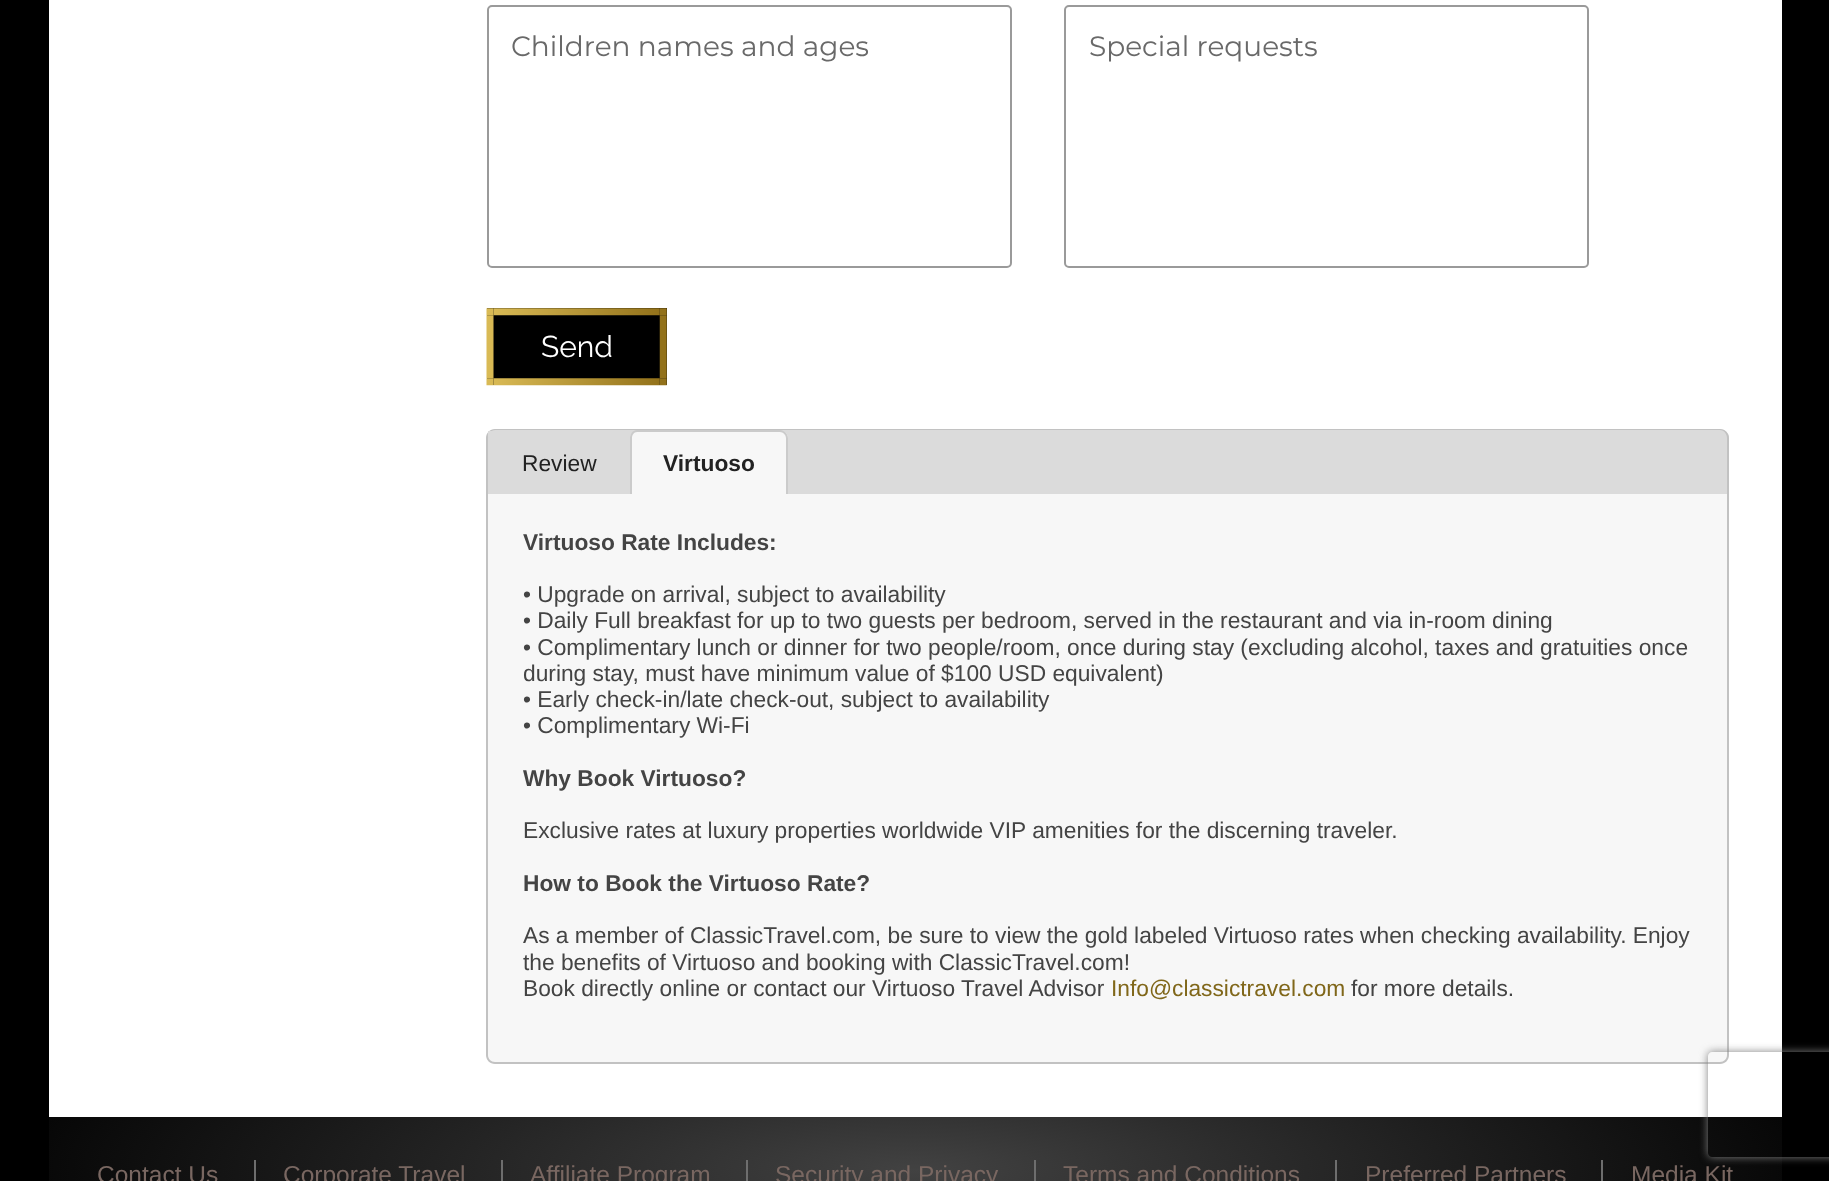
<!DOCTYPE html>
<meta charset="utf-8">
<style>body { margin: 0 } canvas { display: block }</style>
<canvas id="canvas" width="1829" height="1181"></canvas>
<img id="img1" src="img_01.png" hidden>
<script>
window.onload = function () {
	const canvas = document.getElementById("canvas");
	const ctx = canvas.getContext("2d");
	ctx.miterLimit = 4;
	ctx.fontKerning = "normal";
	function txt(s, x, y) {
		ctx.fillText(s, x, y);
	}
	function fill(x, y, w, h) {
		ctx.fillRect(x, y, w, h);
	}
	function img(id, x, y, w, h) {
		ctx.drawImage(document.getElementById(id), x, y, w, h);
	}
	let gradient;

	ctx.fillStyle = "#000000";
	fill(0, 0, 1829, 1181);
	ctx.fillStyle = "#FFFFFF";
	fill(49, 0, 1733, 1117);
	ctx.beginPath();
	ctx.roundRect(488, 6, 523, 261, 4);
	ctx.strokeStyle = "#9A9A9A";
	ctx.lineWidth = 2;
	ctx.stroke();
	ctx.beginPath();
	ctx.roundRect(1065, 6, 523, 261, 4);
	ctx.stroke();
	ctx.fillStyle = "#000000";
	fill(487, 308, 180, 77);
	img("img1", 486, 308, 181, 78);
	ctx.fillStyle = "#DBDBDB";
	ctx.beginPath();
	ctx.roundRect(487, 429, 1242, 65, [9, 9, 0, 0]);
	ctx.fill();
	ctx.fillStyle = "#C2C2C2";
	ctx.beginPath();
	ctx.moveTo(495, 429);
	ctx.lineTo(1720, 429);
	ctx.bezierCurveTo(1725, 429, 1729, 433, 1729, 438);
	ctx.lineTo(1729, 494);
	ctx.lineTo(486, 494);
	ctx.lineTo(486, 438);
	ctx.bezierCurveTo(486, 433, 490, 429, 495, 429);
	ctx.closePath();
	ctx.moveTo(495, 430);
	ctx.lineTo(1720, 430);
	ctx.bezierCurveTo(1724, 430, 1727, 434, 1727, 438);
	ctx.lineTo(1727, 494);
	ctx.lineTo(488, 494);
	ctx.lineTo(488, 438);
	ctx.bezierCurveTo(488, 434, 491, 430, 495, 430);
	ctx.closePath();
	ctx.fill("evenodd");
	ctx.fillStyle = "#DBDBDB";
	fill(488, 431, 4, 6);
	ctx.fillStyle = "#F7F7F7";
	ctx.beginPath();
	ctx.roundRect(630, 431, 158, 63, [7, 7, 0, 0]);
	ctx.fill();
	ctx.fillStyle = "#CBCBCB";
	ctx.beginPath();
	ctx.moveTo(637, 430);
	ctx.lineTo(780, 430);
	ctx.bezierCurveTo(784, 430, 788, 434, 788, 438);
	ctx.lineTo(788, 494);
	ctx.lineTo(630, 494);
	ctx.lineTo(630, 438);
	ctx.bezierCurveTo(630, 434, 633, 430, 637, 430);
	ctx.closePath();
	ctx.moveTo(637, 432);
	ctx.lineTo(780, 432);
	ctx.bezierCurveTo(783, 432, 786, 435, 786, 438);
	ctx.lineTo(786, 494);
	ctx.lineTo(632, 494);
	ctx.lineTo(632, 438);
	ctx.bezierCurveTo(632, 435, 634, 432, 637, 432);
	ctx.closePath();
	ctx.fill("evenodd");
	ctx.fillStyle = "#F7F7F7";
	ctx.beginPath();
	ctx.roundRect(487, 494, 1242, 570, [0, 0, 9, 9]);
	ctx.fill();
	ctx.fillStyle = "#C2C2C2";
	ctx.beginPath();
	ctx.moveTo(486, 494);
	ctx.lineTo(1729, 494);
	ctx.lineTo(1729, 1055);
	ctx.bezierCurveTo(1729, 1060, 1725, 1064, 1720, 1064);
	ctx.lineTo(495, 1064);
	ctx.bezierCurveTo(490, 1064, 486, 1060, 486, 1055);
	ctx.closePath();
	ctx.moveTo(488, 494);
	ctx.lineTo(1727, 494);
	ctx.lineTo(1727, 1055);
	ctx.bezierCurveTo(1727, 1059, 1724, 1062, 1720, 1062);
	ctx.lineTo(495, 1062);
	ctx.bezierCurveTo(491, 1062, 488, 1059, 488, 1055);
	ctx.closePath();
	ctx.fill("evenodd");
	gradient = ctx.createRadialGradient(915, 4761.63, 0, 915, 4761.63, 1225);
	gradient.addColorStop(0, "#424242");
	gradient.addColorStop(0.8, "#010101");
	ctx.fillStyle = gradient;
	ctx.beginPath();
	ctx.rect(49, 1117, 1733, 64);
	ctx.save();
	ctx.clip();
	ctx.scale(1, 301 / 1225);
	ctx.fillRect(0, 0, 1829, 4807);
	ctx.restore();
	ctx.fillStyle = "#6E6E6E";
	fill(254, 1160, 2, 21);
	fill(501, 1160, 2, 21);
	fill(746, 1160, 2, 21);
	fill(1034, 1160, 2, 21);
	fill(1335, 1160, 2, 21);
	fill(1601, 1160, 2, 21);
	ctx.save();
	ctx.beginPath();
	ctx.moveTo(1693, 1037);
	ctx.lineTo(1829, 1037);
	ctx.lineTo(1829, 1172);
	ctx.lineTo(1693, 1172);
	ctx.closePath();
	ctx.moveTo(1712, 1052);
	ctx.lineTo(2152, 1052);
	ctx.bezierCurveTo(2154, 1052, 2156, 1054, 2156, 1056);
	ctx.lineTo(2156, 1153);
	ctx.bezierCurveTo(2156, 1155, 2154, 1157, 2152, 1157);
	ctx.lineTo(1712, 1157);
	ctx.bezierCurveTo(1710, 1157, 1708, 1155, 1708, 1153);
	ctx.lineTo(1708, 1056);
	ctx.bezierCurveTo(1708, 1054, 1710, 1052, 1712, 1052);
	ctx.closePath();
	ctx.clip("evenodd");
	ctx.fillStyle = "#808080";
	ctx.filter = "blur(4.5px)";
	ctx.beginPath();
	ctx.roundRect(1708, 1052, 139, 105, 4);
	ctx.fill();
	ctx.filter = "none";
	ctx.restore();
	ctx.font = "28px Montserrat";
	ctx.fillStyle = "#696969";
	txt("Children names and ages", 511, 56);
	txt("Special requests", 1089, 56);
	ctx.font = "30px Raleway";
	ctx.fillStyle = "#FFFFFF";
	txt("Send", 541, 357);
	ctx.font = "22.75px Liberation Sans";
	ctx.fillStyle = "#222222";
	txt("Review", 522, 471);
	ctx.font = "bold 22.75px Liberation Sans";
	txt("Virtuoso", 663, 471);
	ctx.fillStyle = "#444444";
	txt("Virtuoso Rate Includes:", 523, 550);
	ctx.font = "22.75px Liberation Sans";
	txt("• Upgrade on arrival, subject to availability", 523, 602);
	txt("• Daily Full breakfast for up to two guests per bedroom, served in the restaurant and via in-room dining", 523, 628);
	txt("• Complimentary lunch or dinner for two people/room, once during stay (excluding alcohol, taxes and gratuities once", 523, 655);
	txt("during stay, must have minimum value of $100 USD equivalent)", 523, 681);
	txt("• Early check-in/late check-out, subject to availability", 523, 707);
	txt("• Complimentary Wi-Fi", 523, 733);
	ctx.font = "bold 22.75px Liberation Sans";
	txt("Why Book Virtuoso?", 523, 786);
	ctx.font = "22.75px Liberation Sans";
	txt("Exclusive rates at luxury properties worldwide VIP amenities for the discerning traveler.", 523, 838);
	ctx.font = "bold 22.75px Liberation Sans";
	txt("How to Book the Virtuoso Rate?", 523, 891);
	ctx.font = "22.75px Liberation Sans";
	txt("As a member of ClassicTravel.com, be sure to view the gold labeled Virtuoso rates when checking availability. Enjoy", 523, 943);
	txt("the benefits of Virtuoso and booking with ClassicTravel.com!", 523, 970);
	txt("Book directly online or contact our Virtuoso Travel Advisor", 523, 996);
	ctx.fillStyle = "#80671A";
	txt("Info@classictravel.com", 1111, 996);
	ctx.fillStyle = "#444444";
	txt("for more details.", 1351, 996);
	ctx.font = "24.5px Liberation Sans";
	ctx.fillStyle = "#796761";
	txt("Contact Us", 97, 1183);
	txt("Corporate Travel", 283, 1183);
	txt("Affiliate Program", 530, 1183);
	txt("Security and Privacy", 775, 1183);
	txt("Terms and Conditions", 1063, 1183);
	txt("Preferred Partners", 1365, 1183);
	txt("Media Kit", 1631, 1183);
};
</script>
